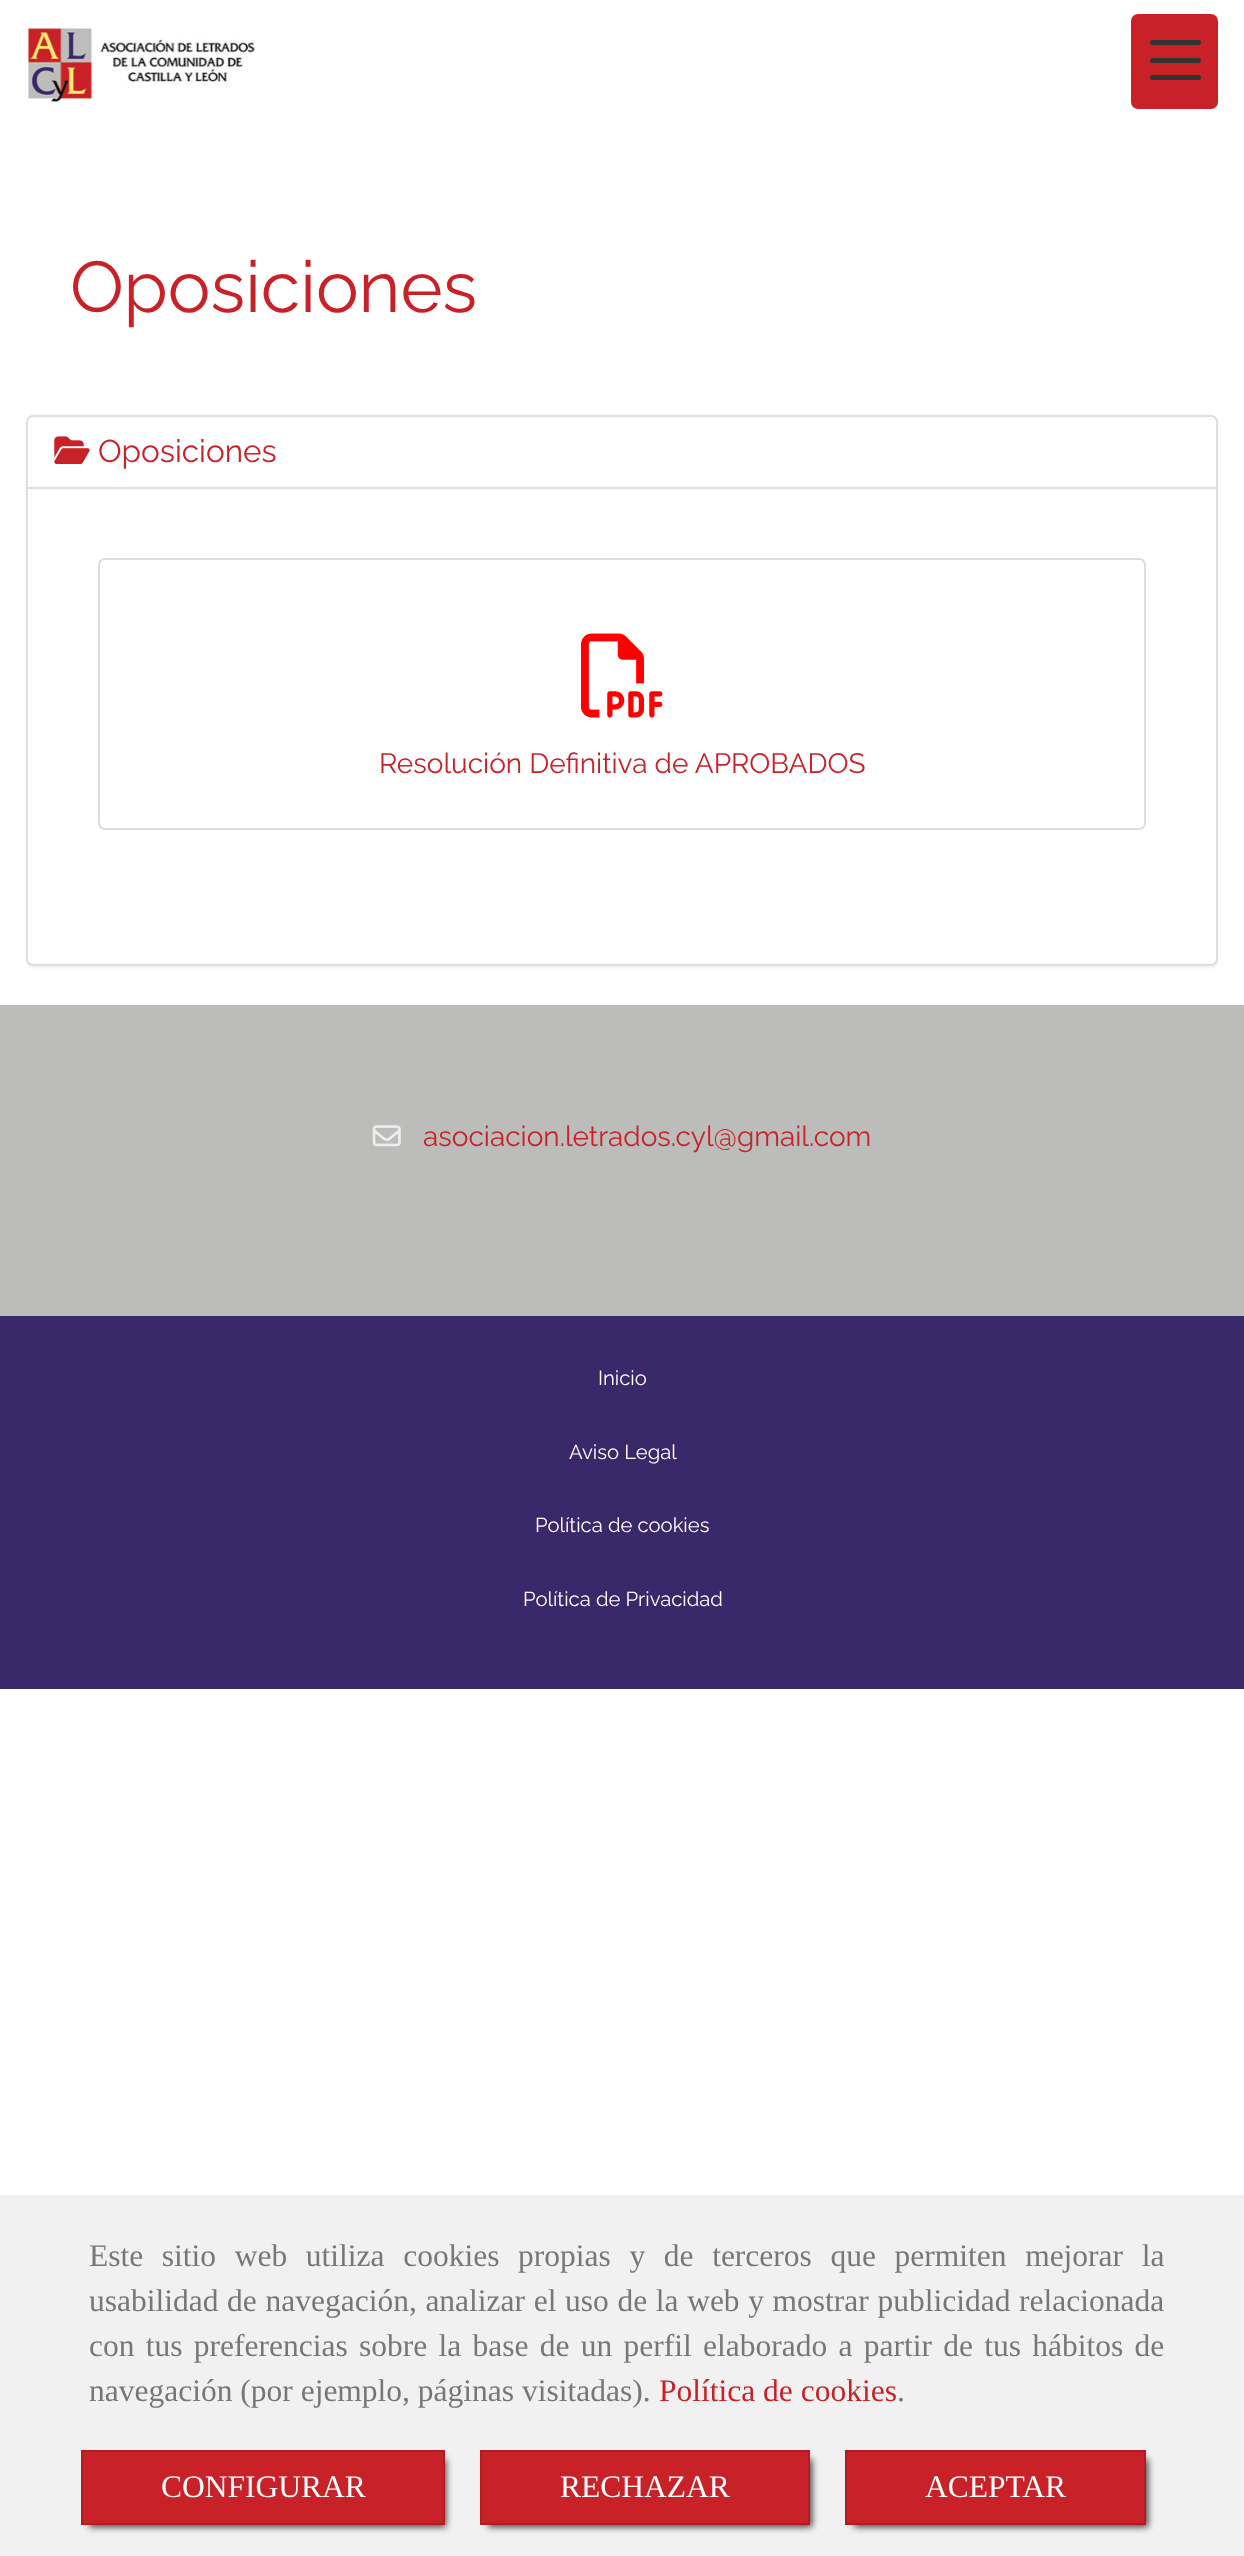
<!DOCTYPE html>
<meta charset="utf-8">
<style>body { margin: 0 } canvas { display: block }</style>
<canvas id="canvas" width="1244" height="2556"></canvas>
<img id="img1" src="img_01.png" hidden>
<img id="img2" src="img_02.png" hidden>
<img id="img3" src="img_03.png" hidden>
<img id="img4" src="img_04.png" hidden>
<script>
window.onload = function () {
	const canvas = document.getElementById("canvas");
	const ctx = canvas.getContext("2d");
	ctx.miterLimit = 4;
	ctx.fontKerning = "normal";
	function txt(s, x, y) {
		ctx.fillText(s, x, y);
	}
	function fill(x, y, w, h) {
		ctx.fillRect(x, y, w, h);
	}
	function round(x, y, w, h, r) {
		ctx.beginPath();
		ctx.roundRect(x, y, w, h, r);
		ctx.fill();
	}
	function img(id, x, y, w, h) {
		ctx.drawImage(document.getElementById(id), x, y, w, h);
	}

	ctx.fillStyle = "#FFFFFF";
	fill(0, 0, 1244, 2556);
	img("img1", 26, 26, 229, 79);
	ctx.fillStyle = "#C82128";
	round(1131, 14, 87, 95, 7);
	ctx.fillStyle = "#333333";
	round(1150, 58, 51, 5, 2);
	round(1150, 40, 51, 5, 2);
	round(1150, 75, 51, 5, 2);
	ctx.fillStyle = "rgba(0, 0, 0, 0.05)";
	ctx.filter = "blur(1px)";
	ctx.beginPath();
	ctx.roundRect(26, 417, 1192, 551, 7);
	ctx.fill();
	ctx.filter = "none";
	ctx.fillStyle = "#FFFFFF";
	ctx.beginPath();
	ctx.roundRect(27, 416, 1190, 549, 6);
	ctx.fill();
	ctx.strokeStyle = "#DDDDDD";
	ctx.lineWidth = 2;
	ctx.stroke();
	img("img2", 54, 436, 36, 28);
	ctx.fillStyle = "#DDDDDD";
	fill(28, 487, 1188, 2);
	ctx.beginPath();
	ctx.roundRect(99, 559, 1046, 270, 6);
	ctx.stroke();
	img("img3", 581, 633, 82, 85);
	ctx.fillStyle = "#BCBCBA";
	fill(0, 1005, 1244, 311);
	img("img4", 372, 1125, 29, 22);
	ctx.fillStyle = "#39286A";
	fill(0, 1316, 1244, 373);
	ctx.fillStyle = "#F1F1F1";
	fill(0, 2195, 1244, 361);
	ctx.fillStyle = "rgba(0, 0, 0, 0.75)";
	ctx.filter = "blur(3.5px)";
	ctx.beginPath();
	ctx.rect(89, 2459, 357, 68);
	ctx.fill();
	ctx.filter = "none";
	ctx.fillStyle = "#C82128";
	ctx.beginPath();
	ctx.rect(82, 2451, 362, 73);
	ctx.fill();
	ctx.strokeStyle = "#B21D24";
	ctx.stroke();
	ctx.fillStyle = "rgba(0, 0, 0, 0.75)";
	ctx.filter = "blur(3.5px)";
	ctx.beginPath();
	ctx.rect(488, 2459, 324, 68);
	ctx.fill();
	ctx.filter = "none";
	ctx.fillStyle = "#C82128";
	ctx.beginPath();
	ctx.rect(481, 2451, 328, 73);
	ctx.fill();
	ctx.stroke();
	ctx.fillStyle = "rgba(0, 0, 0, 0.75)";
	ctx.filter = "blur(3.5px)";
	ctx.beginPath();
	ctx.rect(854, 2459, 294, 68);
	ctx.fill();
	ctx.filter = "none";
	ctx.fillStyle = "#C82128";
	ctx.beginPath();
	ctx.rect(846, 2451, 299, 73);
	ctx.fill();
	ctx.stroke();
	ctx.font = "100 71.75px Raleway";
	txt("Oposiciones", 70, 312);
	ctx.font = "100 31.5px Raleway";
	txt("Oposiciones", 98, 462);
	ctx.font = "100 28px Raleway";
	txt("Resolución Definitiva de APROBADOS", 379, 773);
	txt("asociacion.letrados.cyl@gmail.com", 423, 1146);
	ctx.font = "100 20.25px Raleway";
	ctx.fillStyle = "#FFFFFF";
	txt("Inicio", 598, 1385);
	txt("Aviso Legal", 569, 1459);
	txt("Política de cookies", 535, 1532);
	txt("Política de Privacidad", 523, 1606);
	ctx.wordSpacing = "10.75px";
	ctx.font = "31.5px Liberation Serif";
	ctx.fillStyle = "#777777";
	txt("Este sitio web utiliza cookies propias y de terceros que permiten mejorar la", 89, 2266);
	ctx.wordSpacing = "0.75px";
	txt("usabilidad de navegación, analizar el uso de la web y mostrar publicidad relacionada", 89, 2311);
	ctx.wordSpacing = "3.4px";
	txt("con tus preferencias sobre la base de un perfil elaborado a partir de tus hábitos de", 89, 2356);
	ctx.wordSpacing = "0px";
	txt("navegación (por ejemplo, páginas visitadas).", 89, 2401);
	ctx.fillStyle = "#C82128";
	txt("Política de cookies", 659, 2401);
	ctx.fillStyle = "#777777";
	txt(".", 897, 2401);
	ctx.fillStyle = "#FFFFFF";
	txt("CONFIGURAR", 161, 2497);
	txt("RECHAZAR", 560, 2497);
	txt("ACEPTAR", 925, 2497);
};
</script>
